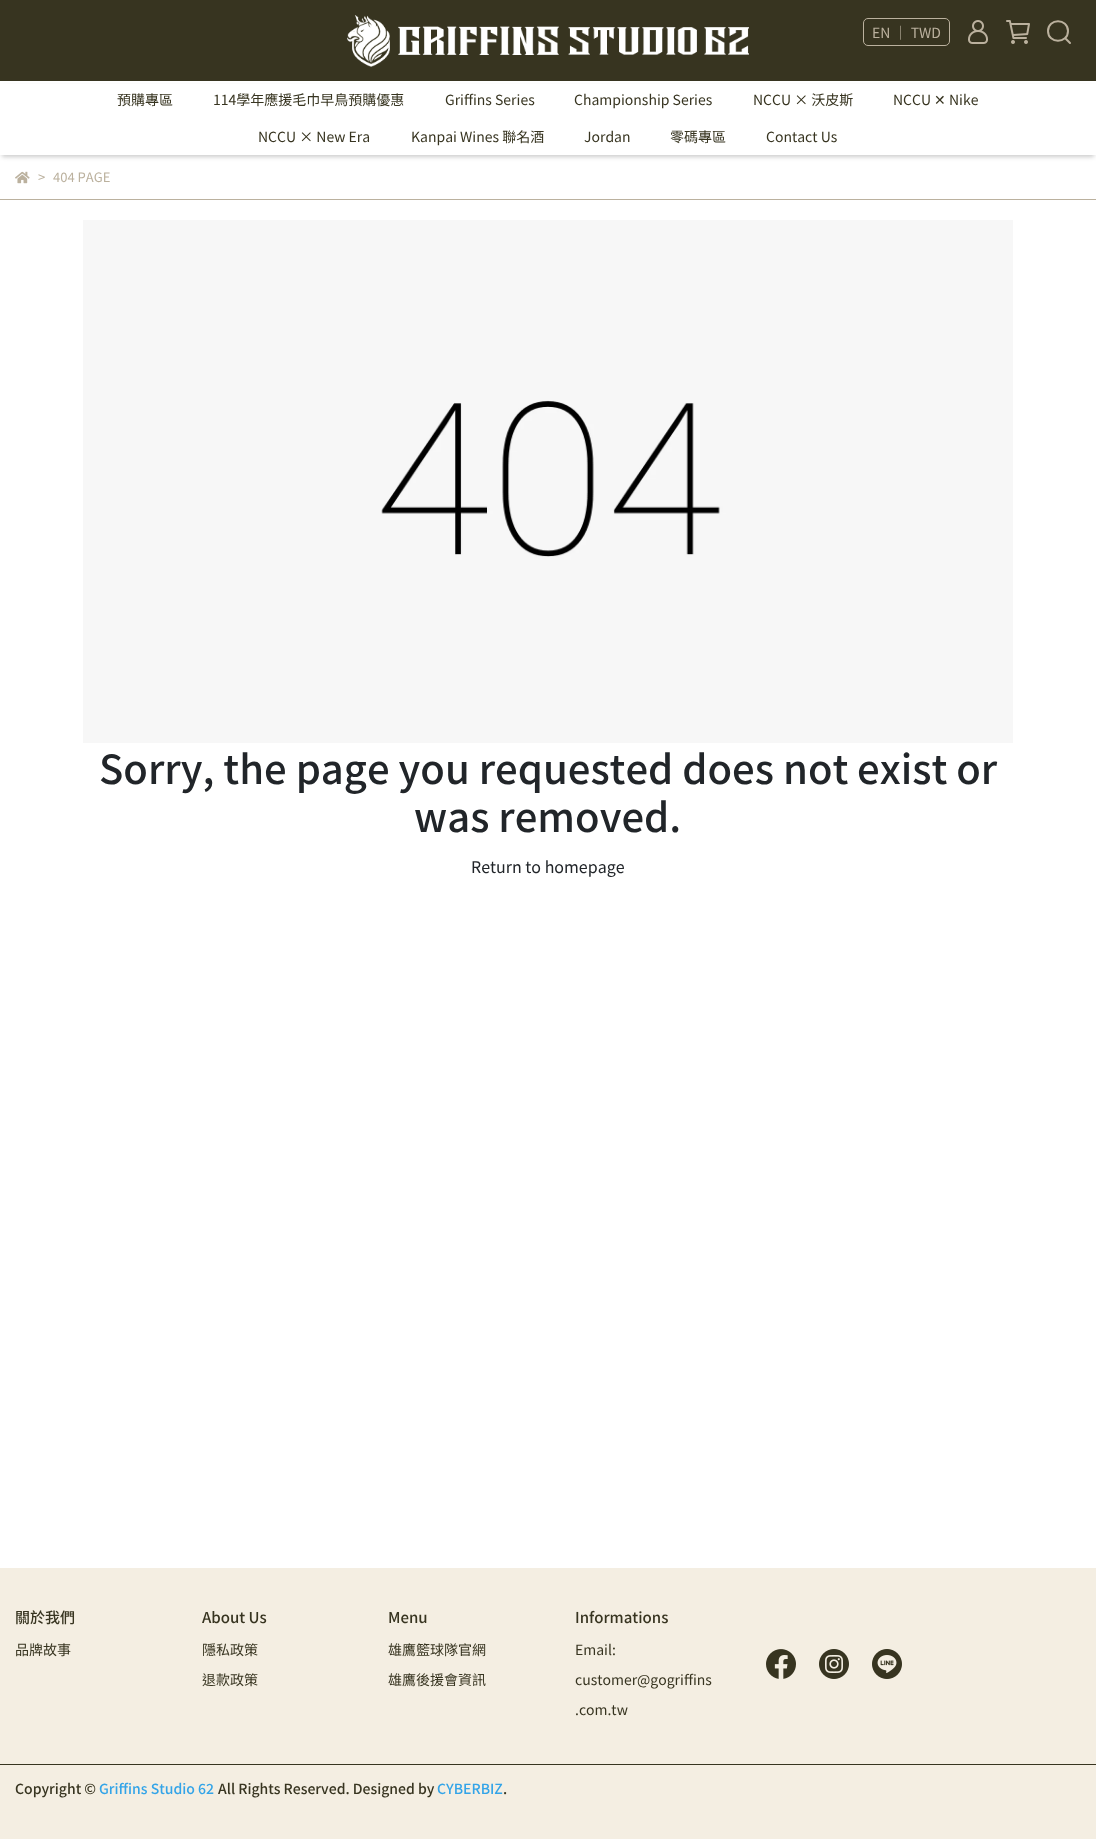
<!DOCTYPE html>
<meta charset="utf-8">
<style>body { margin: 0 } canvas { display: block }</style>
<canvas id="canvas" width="1096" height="1839"></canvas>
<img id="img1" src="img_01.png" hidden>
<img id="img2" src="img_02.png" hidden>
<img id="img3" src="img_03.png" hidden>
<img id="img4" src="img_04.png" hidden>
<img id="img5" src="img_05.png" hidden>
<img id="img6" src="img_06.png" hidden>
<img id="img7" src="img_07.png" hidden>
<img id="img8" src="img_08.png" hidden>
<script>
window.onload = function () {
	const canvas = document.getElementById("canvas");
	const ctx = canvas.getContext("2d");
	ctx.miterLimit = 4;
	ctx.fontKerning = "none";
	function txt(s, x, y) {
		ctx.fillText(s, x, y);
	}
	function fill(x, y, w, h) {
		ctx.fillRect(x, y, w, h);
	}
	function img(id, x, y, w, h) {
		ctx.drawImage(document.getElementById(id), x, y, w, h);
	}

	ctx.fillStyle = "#FFFFFF";
	fill(0, 0, 1096, 1839);
	ctx.fillStyle = "#373420";
	fill(0, 0, 1096, 81);
	img("img1", 347, 15, 402, 52);
	ctx.beginPath();
	ctx.roundRect(863.5, 18.5, 86, 27, 4.5);
	ctx.strokeStyle = "#BBB19E";
	ctx.stroke();
	img("img2", 968, 20, 20, 24);
	img("img3", 1006, 20, 24, 24);
	ctx.beginPath();
	ctx.moveTo(1068, 31);
	ctx.bezierCurveTo(1068, 44, 1048, 44, 1048, 31);
	ctx.bezierCurveTo(1048, 18, 1068, 18, 1068, 31);
	ctx.closePath();
	ctx.moveTo(1066, 39);
	ctx.lineTo(1070, 43);
	ctx.lineWidth = 2;
	ctx.lineCap = "round";
	ctx.lineJoin = "round";
	ctx.stroke();
	ctx.fillStyle = "rgba(0, 0, 0, 0.2)";
	ctx.filter = "blur(2px)";
	ctx.beginPath();
	ctx.rect(2, 87, 1092, 70);
	ctx.fill();
	ctx.filter = "none";
	ctx.fillStyle = "#FFFFFF";
	fill(0, 84, 1096, 71);
	ctx.fillStyle = "#BBB19E";
	fill(0, 199, 1096, 1);
	img("img4", 15, 171, 15, 13);
	img("img5", 83, 220, 930, 523);
	ctx.fillStyle = "#F4EEE2";
	fill(0, 1568, 1096, 271);
	img("img6", 766, 1649, 30, 30);
	img("img7", 819, 1649, 30, 30);
	img("img8", 872, 1649, 30, 30);
	ctx.fillStyle = "#373420";
	fill(0, 1764, 1096, 1);
	ctx.font = "14px Noto Sans TC";
	ctx.fillStyle = "#BBB19E";
	txt("EN ｜ TWD", 872, 38);
	ctx.fillStyle = "#373420";
	txt("預購專區", 117, 105);
	txt("114學年應援毛巾早鳥預購優惠", 213, 105);
	txt("Griffins Series", 445, 105);
	txt("Championship Series", 574, 105);
	txt("NCCU × 沃皮斯", 753, 105);
	txt("NCCU", 893, 105);
	ctx.font = "14px DejaVu Sans";
	txt("✕", 934, 105);
	ctx.font = "14px Noto Sans TC";
	txt("Nike", 949, 105);
	txt("NCCU × New Era", 258, 142);
	txt("Kanpai Wines 聯名酒", 411, 142);
	txt("Jordan", 584, 142);
	txt("零碼專區", 670, 142);
	txt("Contact Us", 766, 142);
	ctx.font = "13px Noto Sans TC";
	ctx.fillStyle = "#BBB19E";
	txt(">", 38, 182);
	txt("404 PAGE", 53, 182);
	ctx.font = "500 40px Noto Sans TC";
	ctx.fillStyle = "#212529";
	txt("Sorry, the page you requested does not", 99, 784);
	txt("exist or", 857, 784);
	txt("was removed.", 414, 832);
	ctx.font = "16px Noto Sans TC";
	txt("Return to homepage", 471, 873);
	ctx.font = "500 15px Noto Sans TC";
	ctx.fillStyle = "#373420";
	txt("關於我們", 15, 1623);
	ctx.font = "14px Noto Sans TC";
	txt("品牌故事", 15, 1655);
	ctx.font = "500 15px Noto Sans TC";
	txt("About Us", 202, 1623);
	ctx.font = "14px Noto Sans TC";
	txt("隱私政策", 202, 1655);
	txt("退款政策", 202, 1685);
	ctx.font = "500 15px Noto Sans TC";
	txt("Menu", 388, 1623);
	ctx.font = "14px Noto Sans TC";
	txt("雄鷹籃球隊官網", 388, 1655);
	txt("雄鷹後援會資訊", 388, 1685);
	ctx.font = "500 15px Noto Sans TC";
	txt("Informations", 575, 1623);
	ctx.font = "14px Noto Sans TC";
	txt("Email:", 575, 1655);
	txt("customer@gogriffins", 575, 1685);
	txt(".com.tw", 575, 1715);
	ctx.font = "500 14px Noto Sans TC";
	txt("Copyright ©", 15, 1794);
	ctx.fillStyle = "#33A4E8";
	txt("Griffins Studio 62", 99, 1794);
	ctx.fillStyle = "#373420";
	txt("All Rights Reserved. Designed by", 218, 1794);
	ctx.fillStyle = "#33A4E8";
	txt("CYBERBIZ", 437, 1794);
	ctx.fillStyle = "#373420";
	txt(".", 503, 1794);
};
</script>
